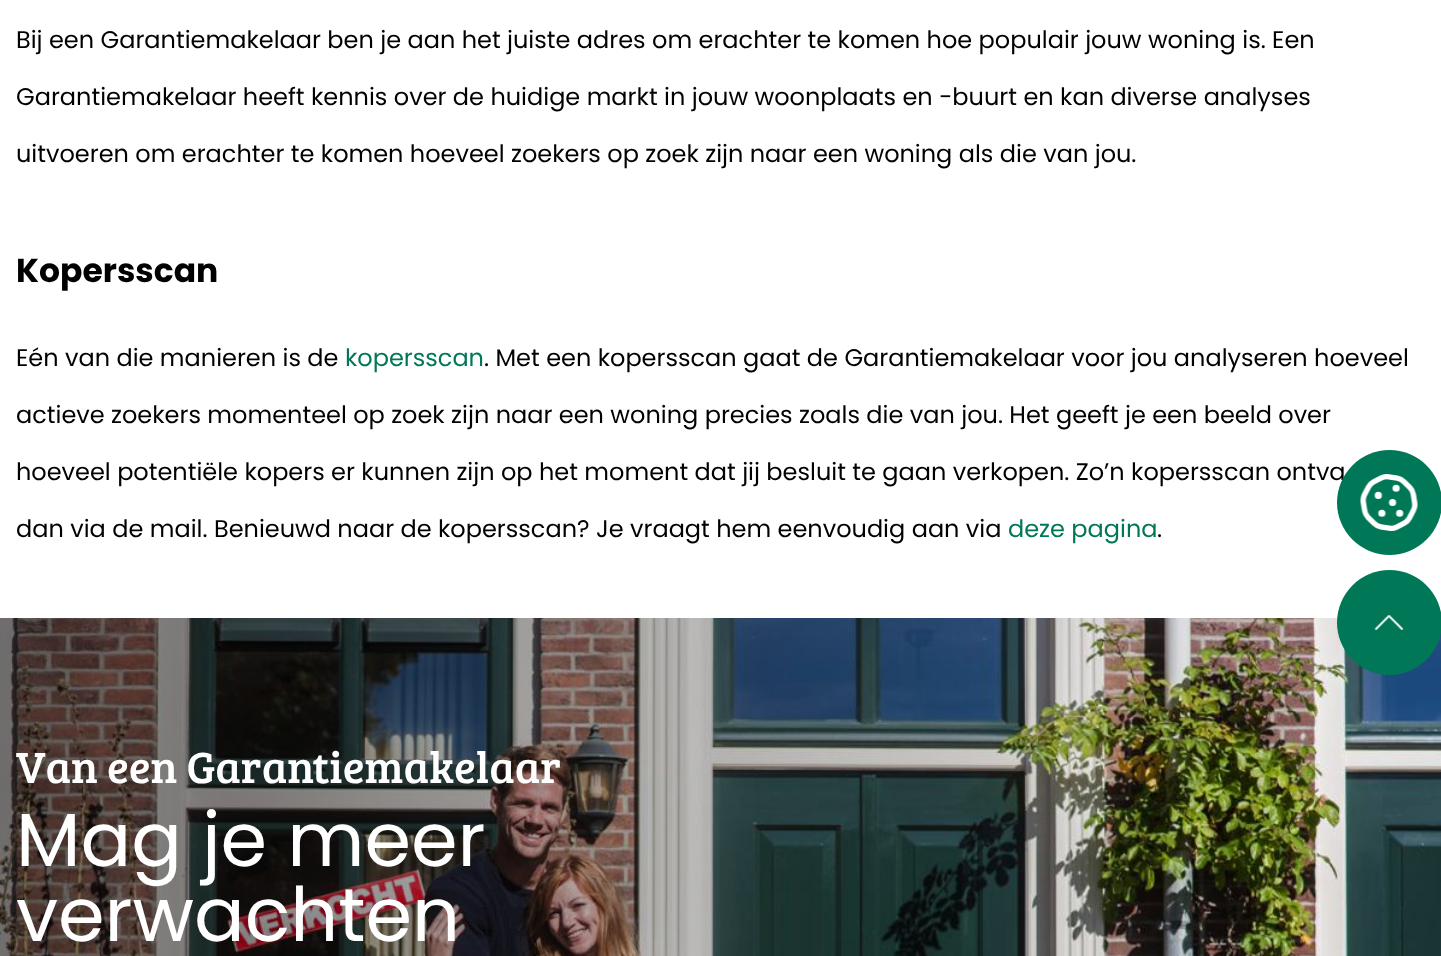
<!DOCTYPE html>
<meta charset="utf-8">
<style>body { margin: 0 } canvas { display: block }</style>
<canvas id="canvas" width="1441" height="956"></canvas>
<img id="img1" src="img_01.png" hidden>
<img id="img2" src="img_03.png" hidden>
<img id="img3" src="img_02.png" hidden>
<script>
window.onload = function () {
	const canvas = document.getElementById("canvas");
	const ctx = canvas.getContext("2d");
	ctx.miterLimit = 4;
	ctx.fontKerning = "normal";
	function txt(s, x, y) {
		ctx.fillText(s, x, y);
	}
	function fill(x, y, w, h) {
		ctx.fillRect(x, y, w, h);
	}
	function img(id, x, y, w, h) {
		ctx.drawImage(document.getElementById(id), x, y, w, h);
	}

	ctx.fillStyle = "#FFFFFF";
	fill(0, 0, 1441, 956);
	img("img1", 0, 618, 1441, 338);
	ctx.fillStyle = "#007858";
	ctx.beginPath();
	ctx.arc(1389.5, 622.5, 52.5, 0, Math.PI * 2);
	ctx.fill();
	img("img2", 1374, 615, 30, 15);
	ctx.font = "24px Poppins";
	ctx.fillStyle = "#000000";
	txt("Bij een Garantiemakelaar ben je aan het juiste adres om erachter te komen hoe populair jouw woning is. Een", 16, 48);
	txt("Garantiemakelaar heeft kennis over de huidige markt in jouw woonplaats en -buurt en kan diverse analyses", 16, 105);
	txt("uitvoeren om erachter te komen hoeveel zoekers op zoek zijn naar een woning als die van jou.", 16, 162);
	ctx.font = "bold 33px Poppins";
	txt("Kopersscan", 16, 282);
	ctx.font = "24px Poppins";
	txt("Eén van die manieren is de", 16, 366);
	ctx.fillStyle = "#007858";
	txt("kopersscan", 345, 366);
	ctx.fillStyle = "#000000";
	txt(". Met een kopersscan gaat de Garantiemakelaar voor jou analyseren hoeveel", 484, 366);
	txt("actieve zoekers momenteel op zoek zijn naar een woning precies zoals die van jou. Het geeft je een beeld over", 16, 423);
	txt("hoeveel potentiële kopers er kunnen zijn op het moment dat jij besluit te gaan verkopen. Zo’n kopersscan ontva", 16, 480);
	txt("dan via de mail. Benieuwd naar de kopersscan? Je vraagt hem eenvoudig aan via", 16, 537);
	ctx.fillStyle = "#007858";
	txt("deze pagina", 1008, 537);
	ctx.fillStyle = "#000000";
	txt(".", 1157, 537);
	ctx.font = "45px Bree Serif";
	ctx.fillStyle = "#FFFFFF";
	txt("Van een Garantiemakelaar", 16, 783);
	ctx.font = "75px Poppins";
	txt("Mag je meer", 16, 866);
	txt("verwachten", 16, 941);
	ctx.fillStyle = "#007858";
	ctx.beginPath();
	ctx.arc(1389.5, 502.5, 52.5, 0, Math.PI * 2);
	ctx.fill();
	img("img3", 1360, 474, 58, 57);
};
</script>
